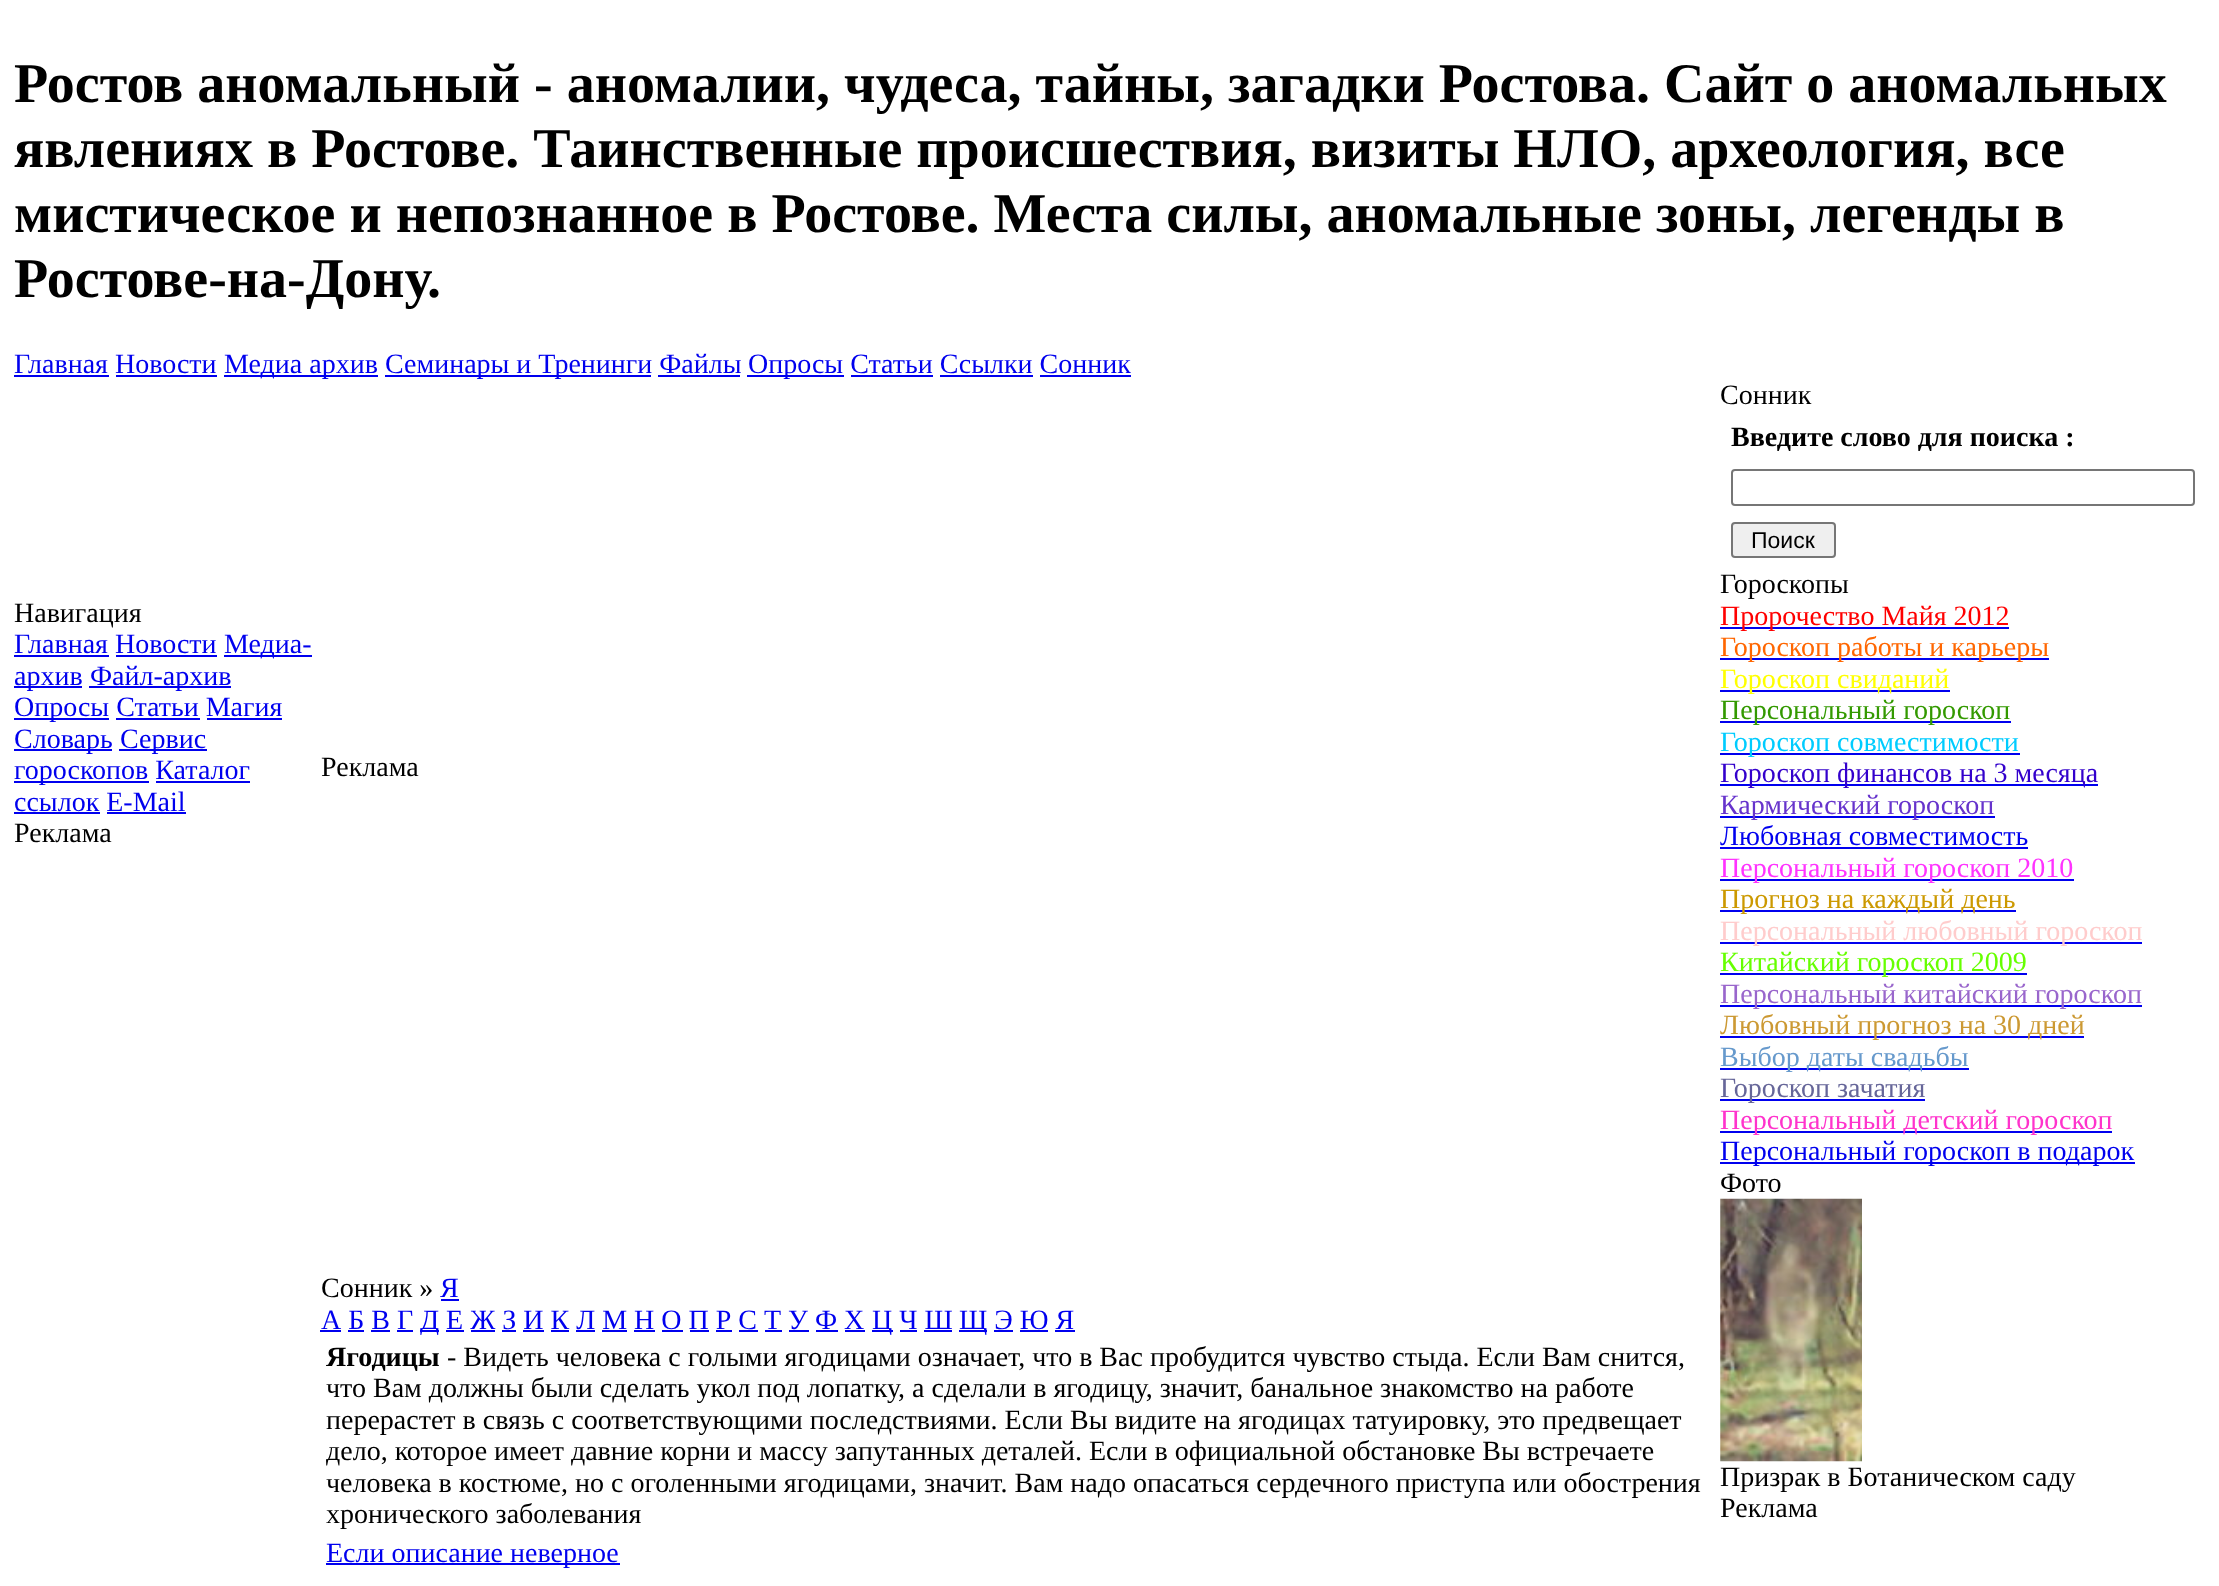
<!DOCTYPE html>
<meta charset="utf-8">
<style>body { margin: 0 } canvas { display: block }</style>
<canvas id="canvas" width="2219" height="1586"></canvas>
<img id="img1" src="img_01.png" hidden>
<script>
window.onload = function () {
	const canvas = document.getElementById("canvas");
	const ctx = canvas.getContext("2d");
	ctx.miterLimit = 4;
	ctx.fontKerning = "normal";
	function txt(s, x, y) {
		ctx.fillText(s, x, y);
	}
	function fill(x, y, w, h) {
		ctx.fillRect(x, y, w, h);
	}
	function img(id, x, y, w, h) {
		ctx.drawImage(document.getElementById(id), x, y, w, h);
	}

	ctx.fillStyle = "#FFFFFF";
	fill(0, 0, 2219, 1586);
	ctx.fillStyle = "#0000EE";
	fill(14, 375, 95, 2);
	fill(224, 375, 154, 2);
	fill(385, 375, 266, 2);
	fill(747, 375, 97, 2);
	fill(116, 375, 101, 2);
	fill(658, 375, 82, 2);
	fill(851, 375, 82, 2);
	fill(940, 375, 93, 2);
	fill(1040, 375, 91, 2);
	fill(14, 655, 95, 2);
	fill(224, 655, 88, 2);
	fill(116, 655, 101, 2);
	fill(14, 686, 68, 2);
	fill(89, 686, 142, 2);
	fill(14, 718, 95, 2);
	fill(116, 718, 84, 2);
	fill(207, 718, 75, 2);
	fill(14, 749, 98, 2);
	fill(119, 749, 88, 2);
	fill(14, 781, 135, 2);
	fill(156, 781, 94, 2);
	fill(14, 812, 86, 2);
	fill(107, 812, 79, 2);
	ctx.beginPath();
	ctx.roundRect(1732, 470, 462, 35, 3);
	ctx.strokeStyle = "#767676";
	ctx.lineWidth = 2;
	ctx.stroke();
	ctx.fillStyle = "#EFEFEF";
	ctx.beginPath();
	ctx.roundRect(1732, 523, 103, 34, 3);
	ctx.fill();
	ctx.stroke();
	ctx.fillStyle = "#0000EE";
	fill(1720, 627, 289, 2);
	fill(1720, 658, 329, 2);
	fill(1720, 690, 230, 2);
	fill(1720, 721, 291, 2);
	fill(1720, 753, 300, 2);
	fill(1720, 784, 378, 2);
	fill(1720, 816, 275, 2);
	fill(1720, 847, 308, 2);
	fill(1720, 879, 354, 2);
	fill(1720, 910, 296, 2);
	fill(1720, 942, 422, 2);
	fill(1720, 973, 307, 2);
	fill(1720, 1005, 422, 2);
	fill(1720, 1036, 364, 2);
	fill(1720, 1068, 249, 2);
	fill(1720, 1099, 205, 2);
	fill(1720, 1131, 392, 2);
	fill(1720, 1162, 415, 2);
	img("img1", 1720, 1198, 142, 264);
	fill(441, 1299, 18, 2);
	fill(320, 1330, 21, 2);
	fill(420, 1330, 19, 2);
	fill(872, 1330, 21, 2);
	fill(959, 1330, 28, 2);
	fill(348, 1330, 16, 2);
	fill(371, 1330, 19, 2);
	fill(397, 1330, 16, 2);
	fill(446, 1330, 18, 2);
	fill(471, 1330, 24, 2);
	fill(502, 1330, 14, 2);
	fill(523, 1330, 21, 2);
	fill(551, 1330, 18, 2);
	fill(576, 1330, 19, 2);
	fill(602, 1330, 25, 2);
	fill(634, 1330, 21, 2);
	fill(662, 1330, 21, 2);
	fill(690, 1330, 19, 2);
	fill(716, 1330, 16, 2);
	fill(739, 1330, 19, 2);
	fill(765, 1330, 17, 2);
	fill(789, 1330, 20, 2);
	fill(816, 1330, 22, 2);
	fill(845, 1330, 20, 2);
	fill(900, 1330, 17, 2);
	fill(924, 1330, 28, 2);
	fill(994, 1330, 19, 2);
	fill(1020, 1330, 28, 2);
	fill(1055, 1330, 20, 2);
	fill(326, 1563, 294, 2);
	ctx.font = "bold 56px Liberation Serif";
	ctx.fillStyle = "#000000";
	txt("Ростов аномальный - аномалии, чудеса, тайны, загадки Ростова. Сайт о аномальных", 14, 102);
	txt("явлениях в Ростове. Таинственные происшествия, визиты НЛО, археология, все", 14, 167);
	txt("мистическое и непознанное в Ростове. Места силы, аномальные зоны, легенды в", 14, 232);
	txt("Ростове-на-Дону.", 14, 297);
	ctx.font = "28px Liberation Serif";
	ctx.fillStyle = "#0000EE";
	txt("Главная Новости", 14, 373);
	txt("Медиа архив", 224, 373);
	txt("Семинары и Тренинги Файлы", 385, 373);
	txt("Опросы Статьи Ссылки Сонник", 748, 373);
	ctx.fillStyle = "#000000";
	txt("Навигация", 14, 622);
	ctx.fillStyle = "#0000EE";
	txt("Главная Новости", 14, 653);
	txt("Медиа-", 224, 653);
	txt("архив", 14, 685);
	txt("Файл-архив", 90, 685);
	txt("Опросы Статьи Магия", 14, 716);
	txt("Словарь", 14, 748);
	txt("Сервис", 120, 748);
	txt("гороскопов Каталог", 14, 779);
	txt("ссылок E-Mail", 14, 811);
	ctx.fillStyle = "#000000";
	txt("Реклама", 14, 842);
	txt("Сонник", 1720, 404);
	ctx.font = "bold 28px Liberation Serif";
	txt("Введите слово для поиска :", 1731, 446);
	ctx.font = "23px Liberation Sans";
	txt("Поиск", 1751, 548);
	ctx.font = "28px Liberation Serif";
	txt("Гороскопы", 1720, 593);
	ctx.fillStyle = "#FF0000";
	txt("Пророчество Майя 2012", 1720, 625);
	ctx.fillStyle = "#FF6600";
	txt("Гороскоп работы и карьеры", 1720, 656);
	ctx.fillStyle = "#FFFF00";
	txt("Гороскоп свиданий", 1720, 688);
	ctx.fillStyle = "#339900";
	txt("Персональный гороскоп", 1720, 719);
	ctx.fillStyle = "#00CCFF";
	txt("Гороскоп совместимости", 1720, 751);
	ctx.fillStyle = "#3300CC";
	txt("Гороскоп финансов на 3 месяца", 1720, 782);
	ctx.fillStyle = "#6633CC";
	txt("Кармический гороскоп", 1720, 814);
	ctx.fillStyle = "#0000EE";
	txt("Любовная совместимость", 1720, 845);
	ctx.fillStyle = "#FF33FF";
	txt("Персональный гороскоп 2010", 1720, 877);
	ctx.fillStyle = "#CC9900";
	txt("Прогноз на каждый день", 1720, 908);
	ctx.fillStyle = "#FFCCCC";
	txt("Персональный любовный гороскоп", 1720, 940);
	ctx.fillStyle = "#66FF00";
	txt("Китайский гороскоп 2009", 1720, 971);
	ctx.fillStyle = "#9966CC";
	txt("Персональный китайский гороскоп", 1720, 1003);
	ctx.fillStyle = "#CC9933";
	txt("Любовный прогноз на 30 дней", 1720, 1034);
	ctx.fillStyle = "#6699CC";
	txt("Выбор даты свадьбы", 1720, 1066);
	ctx.fillStyle = "#666699";
	txt("Гороскоп зачатия", 1720, 1097);
	ctx.fillStyle = "#FF33CC";
	txt("Персональный детский гороскоп", 1720, 1129);
	ctx.fillStyle = "#0000EE";
	txt("Персональный гороскоп в подарок", 1720, 1160);
	ctx.fillStyle = "#000000";
	txt("Фото", 1720, 1192);
	txt("Призрак в Ботаническом саду", 1720, 1486);
	txt("Реклама", 1720, 1517);
	txt("Реклама", 321, 776);
	txt("Сонник »", 321, 1297);
	ctx.fillStyle = "#0000EE";
	txt("Я", 440, 1297);
	txt("А Б В Г", 321, 1329);
	txt("Д Е Ж З И К Л М Н О П Р С Т У Ф Х", 420, 1329);
	txt("Ц Ч Ш", 872, 1329);
	txt("Щ Э Ю Я", 959, 1329);
	ctx.font = "bold 28px Liberation Serif";
	ctx.fillStyle = "#000000";
	txt("Ягодицы", 326, 1366);
	ctx.font = "28px Liberation Serif";
	txt("- Видеть человека с голыми ягодицами означает, что в Вас пробудится чувство стыда. Если Вам снится,", 447, 1366);
	txt("что Вам должны были сделать укол под лопатку, а сделали в ягодицу, значит, банальное знакомство на работе", 326, 1397);
	txt("перерастет в связь с соответствующими последствиями. Если Вы видите на ягодицах татуировку, это предвещает", 326, 1429);
	txt("дело, которое имеет давние корни и массу запутанных деталей. Если в официальной обстановке Вы встречаете", 326, 1460);
	txt("человека в костюме, но с оголенными ягодицами, значит. Вам надо опасаться сердечного приступа или обострения", 326, 1492);
	txt("хронического заболевания", 326, 1523);
	ctx.fillStyle = "#0000EE";
	txt("Если описание неверное", 326, 1562);
};
</script>
